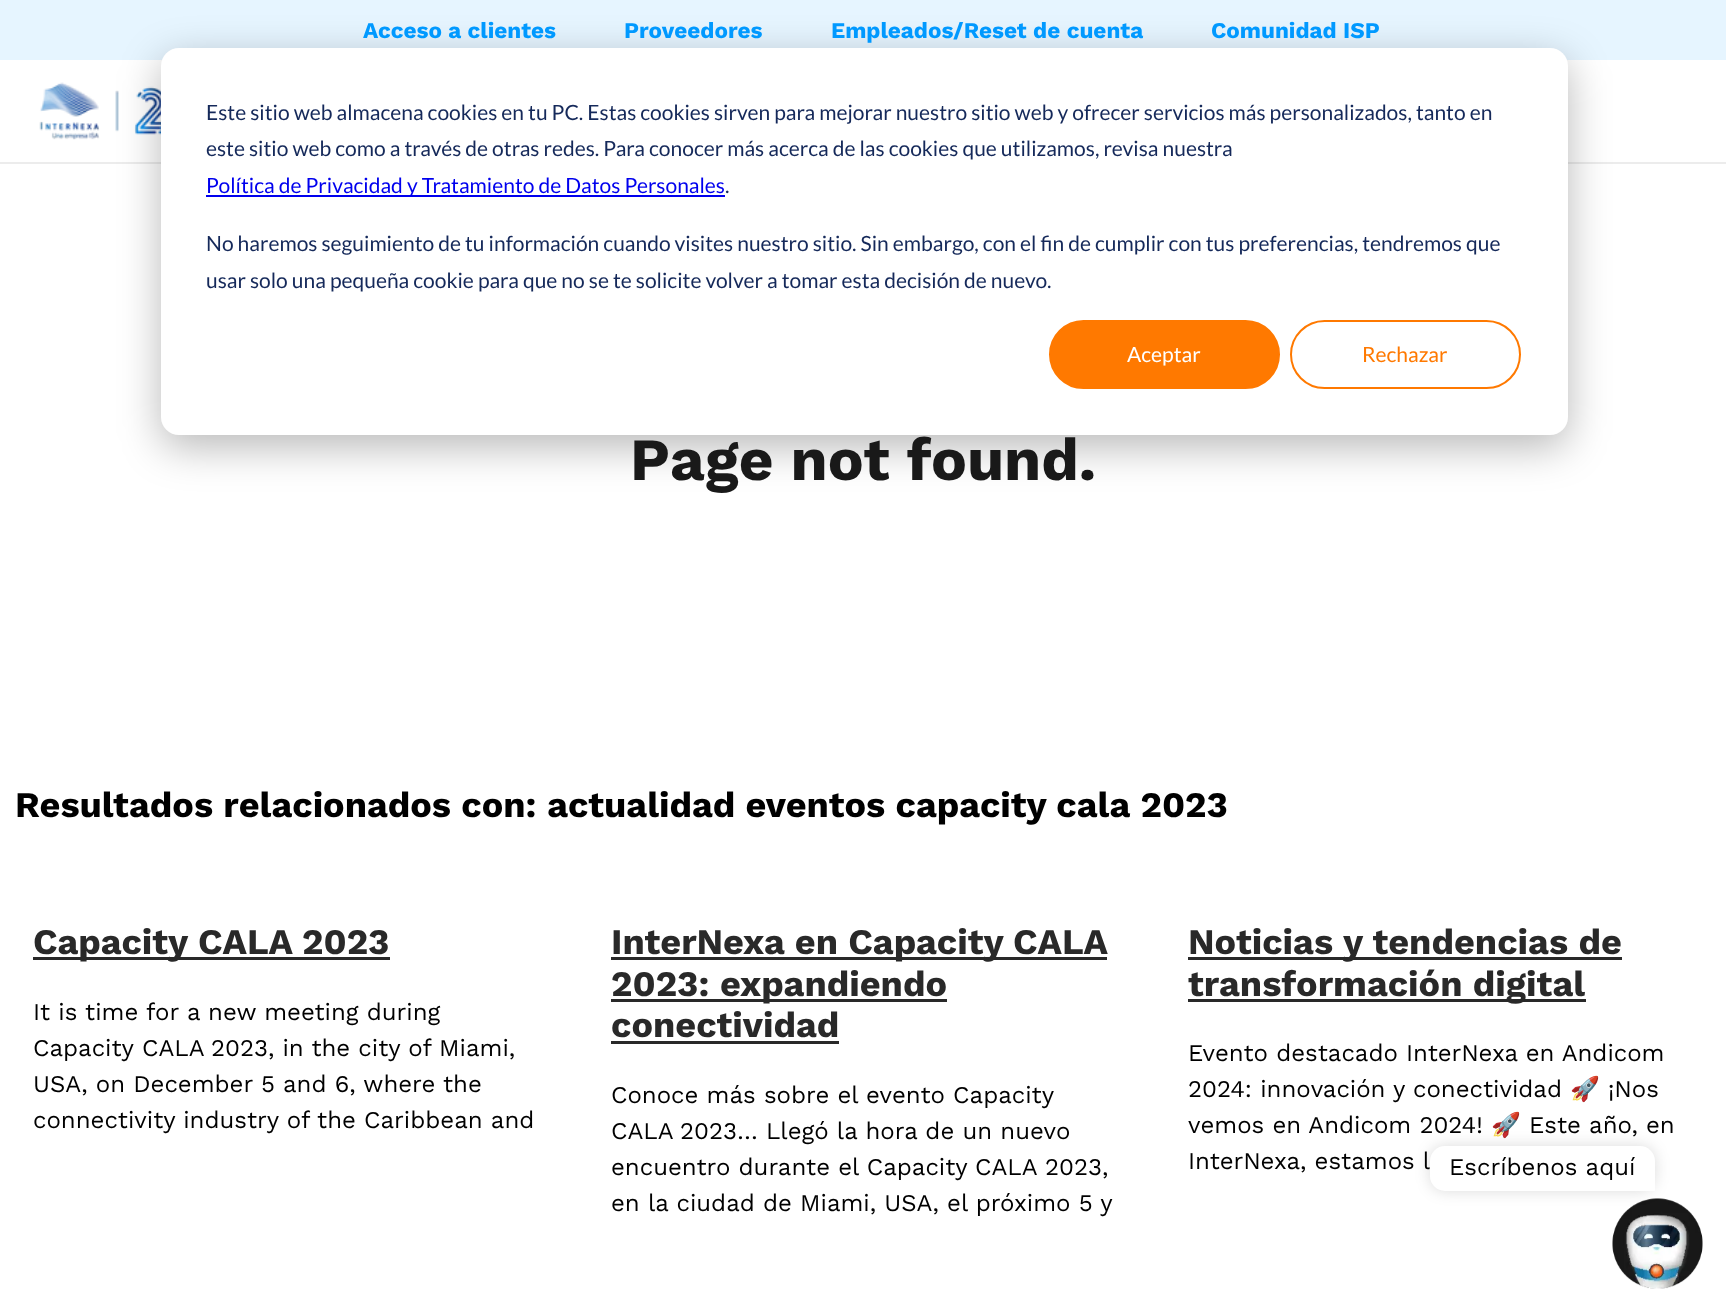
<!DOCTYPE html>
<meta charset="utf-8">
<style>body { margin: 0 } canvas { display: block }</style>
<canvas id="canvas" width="1726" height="1310"></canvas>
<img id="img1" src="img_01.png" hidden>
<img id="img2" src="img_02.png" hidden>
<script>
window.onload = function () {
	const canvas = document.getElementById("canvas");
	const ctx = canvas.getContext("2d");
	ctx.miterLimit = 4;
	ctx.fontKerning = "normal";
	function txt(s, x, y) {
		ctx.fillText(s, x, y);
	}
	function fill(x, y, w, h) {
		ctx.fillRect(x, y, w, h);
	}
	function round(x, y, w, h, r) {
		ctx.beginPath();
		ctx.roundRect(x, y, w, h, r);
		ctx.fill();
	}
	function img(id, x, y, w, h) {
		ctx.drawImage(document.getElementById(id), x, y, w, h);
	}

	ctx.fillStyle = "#FFFFFF";
	fill(0, 0, 1726, 1310);
	ctx.fillStyle = "#E6F5FF";
	fill(0, 0, 1726, 60);
	ctx.fillStyle = "#ECECEC";
	fill(0, 162, 1726, 2);
	img("img1", 39, 82, 122, 58);
	ctx.fillStyle = "#292929";
	fill(33, 957, 155, 3);
	fill(188, 957, 202, 3);
	fill(611, 957, 391, 3);
	fill(1002, 957, 105, 3);
	fill(611, 999, 336, 3);
	fill(611, 1041, 228, 3);
	fill(1188, 957, 434, 3);
	fill(1188, 999, 398, 3);
	img("img2", 1612, 1198, 91, 91);
	ctx.fillStyle = "rgba(0, 0, 0, 0.14)";
	ctx.filter = "blur(7.5px)";
	ctx.beginPath();
	ctx.roundRect(1430, 1146, 225, 45, 15);
	ctx.fill();
	ctx.filter = "none";
	ctx.fillStyle = "#FFFFFF";
	ctx.beginPath();
	ctx.roundRect(1430, 1146, 225, 45, [15, 15, 0, 15]);
	ctx.fill();
	ctx.fillStyle = "rgba(0, 0, 0, 0.28)";
	ctx.filter = "blur(21px)";
	ctx.beginPath();
	ctx.roundRect(161, 60, 1407, 387, 18);
	ctx.fill();
	ctx.filter = "none";
	ctx.fillStyle = "#FFFFFF";
	round(161, 48, 1407, 387, 18);
	ctx.fillStyle = "#0000EE";
	fill(206, 195, 519, 2);
	ctx.fillStyle = "#FF7900";
	ctx.beginPath();
	ctx.roundRect(1050, 321, 229, 67, 33.5);
	ctx.fill();
	ctx.strokeStyle = "#FF7900";
	ctx.lineWidth = 2;
	ctx.stroke();
	ctx.beginPath();
	ctx.roundRect(1291, 321, 229, 67, 33.5);
	ctx.stroke();
	ctx.font = "bold 22.5px Work Sans";
	ctx.fillStyle = "#0099FF";
	txt("Acceso a clientes", 363, 38);
	txt("Proveedores", 624, 38);
	txt("Empleados/Reset de cuenta", 831, 38);
	txt("Comunidad ISP", 1211, 38);
	ctx.font = "bold 60px Work Sans";
	ctx.fillStyle = "#191919";
	txt("Page not found.", 630, 480);
	ctx.font = "bold 36px Work Sans";
	ctx.fillStyle = "#000000";
	txt("Resultados relacionados con: actualidad eventos capacity cala 2023", 15, 817);
	ctx.fillStyle = "#292929";
	txt("Capacity", 33, 954);
	txt("CALA", 198, 954);
	txt("2023", 302, 954);
	ctx.font = "24px Work Sans";
	ctx.fillStyle = "#000000";
	txt("It is time for a new meeting during", 33, 1020);
	txt("Capacity", 33, 1056);
	txt("CALA", 142, 1056);
	txt("2023, in the city of Miami,", 211, 1056);
	txt("USA, on December 5 and 6, where the", 33, 1092);
	txt("connectivity industry of the Caribbean and", 33, 1128);
	ctx.font = "bold 36px Work Sans";
	ctx.fillStyle = "#292929";
	txt("InterNexa en Capacity", 611, 954);
	txt("CALA", 1013, 954);
	txt("2023: expandiendo", 611, 996);
	txt("conectividad", 611, 1037);
	ctx.font = "24px Work Sans";
	ctx.fillStyle = "#000000";
	txt("Conoce más sobre el evento Capacity", 611, 1103);
	txt("CALA", 611, 1139);
	txt("2023… Llegó la hora de un nuevo", 680, 1139);
	txt("encuentro durante el Capacity", 611, 1175);
	txt("CALA", 975, 1175);
	txt("2023,", 1045, 1175);
	txt("en la ciudad de Miami, USA, el próximo 5 y", 611, 1211);
	ctx.font = "bold 36px Work Sans";
	ctx.fillStyle = "#292929";
	txt("Noticias y tendencias de", 1188, 954);
	txt("transformación digital", 1188, 996);
	ctx.font = "24px Work Sans";
	ctx.fillStyle = "#000000";
	txt("Evento destacado InterNexa en Andicom", 1188, 1061);
	txt("2024: innovación y conectividad", 1188, 1097);
	ctx.font = "24px Noto Color Emoji";
	txt("🚀", 1570, 1097);
	ctx.font = "24px Work Sans";
	txt("¡Nos", 1608, 1097);
	txt("vemos en Andicom 2024!", 1188, 1133);
	ctx.font = "24px Noto Color Emoji";
	txt("🚀", 1491, 1133);
	ctx.font = "24px Work Sans";
	txt("Este año, en", 1529, 1133);
	txt("InterNexa, estamos l", 1188, 1169);
	txt("Escríbenos aquí", 1449, 1175);
	ctx.font = "21px Lato";
	ctx.fillStyle = "#15295A";
	txt("Este sitio web almacena cookies en tu PC. Estas cookies sirven para mejorar nuestro sitio web y ofrecer servicios más personalizados, tanto en", 206, 120);
	txt("este sitio web como a través de otras redes. Para conocer más acerca de las cookies que utilizamos, revisa nuestra", 206, 156);
	ctx.fillStyle = "#0000EE";
	txt("Política de Privacidad y Tratamiento de Datos Personales", 206, 193);
	ctx.fillStyle = "#15295A";
	txt(".", 725, 193);
	txt("No haremos seguimiento de tu información cuando visites nuestro sitio. Sin embargo, con el fin de cumplir con tus preferencias, tendremos que", 206, 251);
	txt("usar solo una pequeña cookie para que no se te solicite volver a tomar esta decisión de nuevo.", 206, 288);
	ctx.fillStyle = "#FFFFFF";
	txt("Aceptar", 1127, 362);
	ctx.fillStyle = "#FF7900";
	txt("Rechazar", 1362, 362);
};
</script>
